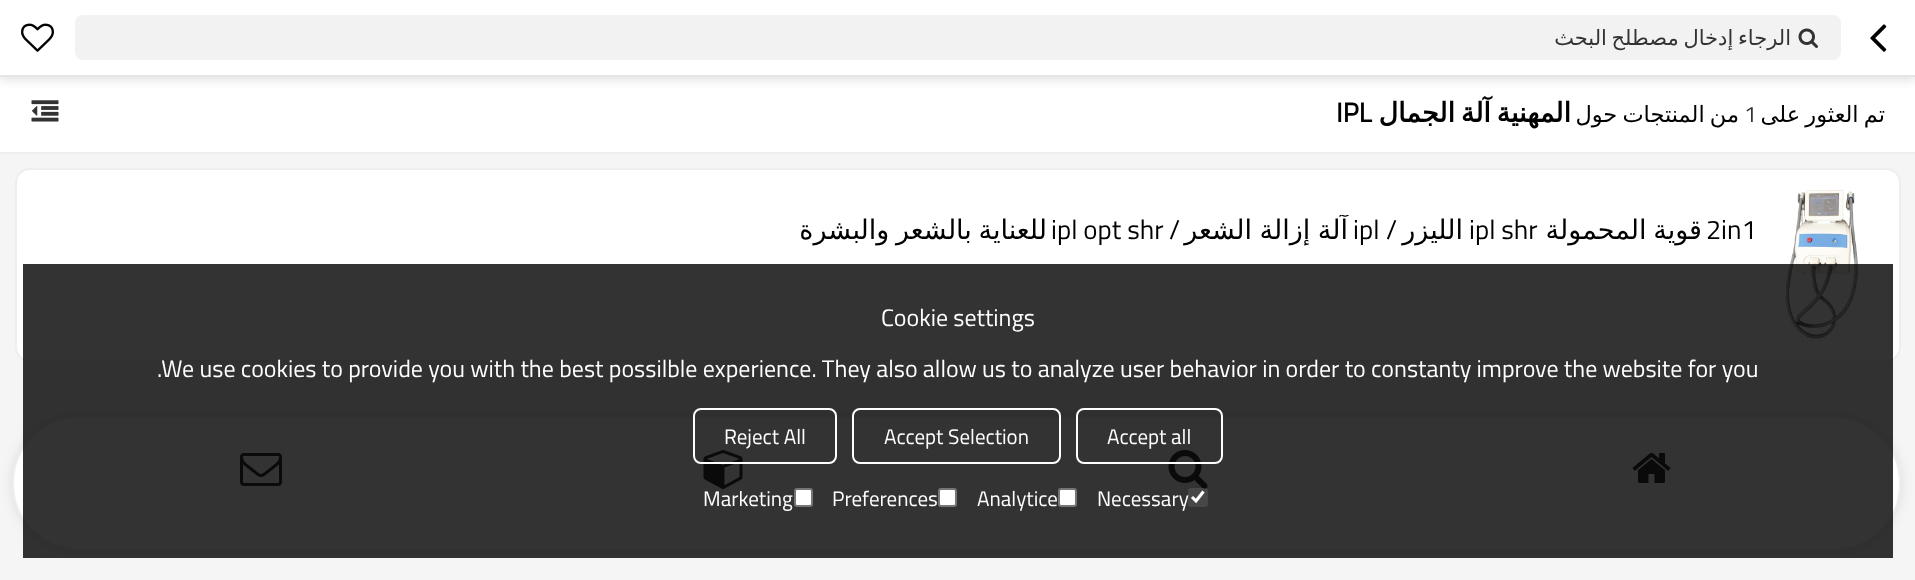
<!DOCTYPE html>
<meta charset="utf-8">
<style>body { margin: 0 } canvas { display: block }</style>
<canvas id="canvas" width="1915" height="580"></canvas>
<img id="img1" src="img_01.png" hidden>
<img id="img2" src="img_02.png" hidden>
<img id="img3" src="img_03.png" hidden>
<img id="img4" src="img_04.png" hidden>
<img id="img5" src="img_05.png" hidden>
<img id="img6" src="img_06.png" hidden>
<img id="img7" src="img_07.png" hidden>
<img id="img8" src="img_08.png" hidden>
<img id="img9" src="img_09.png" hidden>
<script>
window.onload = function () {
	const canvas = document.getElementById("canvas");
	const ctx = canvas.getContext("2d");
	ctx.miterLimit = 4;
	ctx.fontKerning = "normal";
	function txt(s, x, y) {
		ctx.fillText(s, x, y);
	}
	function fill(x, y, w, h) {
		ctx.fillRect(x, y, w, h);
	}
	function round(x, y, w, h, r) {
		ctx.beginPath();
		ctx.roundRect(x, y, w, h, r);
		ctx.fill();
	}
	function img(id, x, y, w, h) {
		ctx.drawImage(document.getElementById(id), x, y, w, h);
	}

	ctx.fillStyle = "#F5F5F5";
	fill(0, 0, 1915, 580);
	ctx.fillStyle = "#FFFFFF";
	fill(0, 77, 1915, 75);
	ctx.fillStyle = "rgba(0, 0, 0, 0.1)";
	ctx.filter = "blur(4px)";
	ctx.beginPath();
	ctx.rect(0, 5, 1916, 76);
	ctx.fill();
	ctx.filter = "none";
	ctx.fillStyle = "#FFFFFF";
	fill(0, 0, 1915, 75);
	ctx.fillStyle = "#E5E5E5";
	fill(0, 75, 1915, 2);
	img("img1", 21, 23, 33, 29);
	ctx.fillStyle = "#F2F2F2";
	round(75, 15, 1766, 45, 8);
	img("img2", 1798, 28, 20, 20);
	img("img3", 1870, 24, 17, 28);
	ctx.fillStyle = "#EEEEEE";
	fill(0, 152, 1915, 2);
	img("img4", 31, 100, 28, 22);
	ctx.fillStyle = "#FFFFFF";
	ctx.beginPath();
	ctx.roundRect(16, 169, 1884, 192, 14);
	ctx.fill();
	ctx.strokeStyle = "#EEEEEE";
	ctx.lineWidth = 2;
	ctx.stroke();
	img("img5", 1785, 189, 74, 154);
	ctx.fillStyle = "rgba(0, 0, 0, 0.1)";
	ctx.filter = "blur(6px)";
	ctx.beginPath();
	ctx.roundRect(12, 416, 1889, 135, 67.5);
	ctx.fill();
	ctx.filter = "none";
	ctx.fillStyle = "#FFFFFF";
	ctx.beginPath();
	ctx.roundRect(13, 417, 1887, 133, 66.5);
	ctx.fill();
	ctx.stroke();
	img("img6", 240, 453, 42, 33);
	img("img7", 703, 450, 40, 39);
	img("img8", 1168, 450, 40, 39);
	img("img9", 1632, 452, 39, 31);
	ctx.fillStyle = "rgba(0, 0, 0, 0.8)";
	fill(23, 264, 1870, 294);
	ctx.beginPath();
	ctx.roundRect(694, 409, 142, 54, 7);
	ctx.strokeStyle = "#FFFFFF";
	ctx.stroke();
	ctx.beginPath();
	ctx.roundRect(853, 409, 207, 54, 7);
	ctx.stroke();
	ctx.beginPath();
	ctx.roundRect(1077, 409, 145, 54, 7);
	ctx.stroke();
	ctx.fillStyle = "#FFFFFF";
	ctx.beginPath();
	ctx.roundRect(795, 489, 17, 17, 2);
	ctx.fill();
	ctx.strokeStyle = "#767676";
	ctx.stroke();
	ctx.beginPath();
	ctx.roundRect(939, 489, 17, 17, 2);
	ctx.fill();
	ctx.stroke();
	ctx.beginPath();
	ctx.roundRect(1059, 489, 17, 17, 2);
	ctx.fill();
	ctx.stroke();
	ctx.fillStyle = "rgba(118, 118, 118, 0.3)";
	round(1188, 488, 20, 19, 3);
	ctx.beginPath();
	ctx.moveTo(1192, 497);
	ctx.lineTo(1196, 501);
	ctx.lineTo(1203.5, 491.5);
	ctx.strokeStyle = "#FFFFFF";
	ctx.lineWidth = 3.1;
	ctx.stroke();
	ctx.wordSpacing = "-2px";
	ctx.direction = "rtl";
	ctx.font = "21px DejaVu Sans";
	ctx.fillStyle = "#333333";
	txt("الرجاء إدخال مصطلح البحث", 1791, 45);
	ctx.wordSpacing = "0px";
	ctx.direction = "ltr";
	ctx.font = "bold 27px Titillium Web";
	ctx.fillStyle = "#000000";
	txt("IPL", 1336, 122);
	ctx.wordSpacing = "-3px";
	ctx.direction = "rtl";
	ctx.font = "bold 27px DejaVu Sans";
	txt("المهنية آلة الجمال", 1571, 122);
	ctx.wordSpacing = "-2px";
	ctx.font = "22.5px DejaVu Sans";
	txt("من المنتجات حول", 1739, 122);
	ctx.wordSpacing = "0px";
	ctx.direction = "ltr";
	ctx.font = "22.5px Titillium Web";
	ctx.fillStyle = "#333333";
	txt("1", 1744, 122);
	ctx.wordSpacing = "-2px";
	ctx.direction = "rtl";
	ctx.font = "22.5px DejaVu Sans";
	ctx.fillStyle = "#000000";
	txt("تم العثور على", 1885, 122);
	ctx.font = "27px DejaVu Sans";
	txt("للعناية بالشعر والبشرة", 1047, 239);
	ctx.wordSpacing = "0px";
	ctx.direction = "ltr";
	ctx.font = "27px Titillium Web";
	txt("ipl opt shr", 1051, 239);
	ctx.direction = "rtl";
	txt("/", 1180, 239);
	ctx.save();
	ctx.beginPath();
	ctx.rect(39, 215, 1718, 33);
	ctx.clip();
	ctx.wordSpacing = "-1px";
	ctx.font = "27px DejaVu Sans";
	txt("آلة إزالة الشعر", 1348, 239);
	ctx.restore();
	ctx.direction = "ltr";
	txt("ipl", 1353, 239);
	ctx.direction = "rtl";
	txt("/", 1397, 239);
	ctx.font = "27px DejaVu Sans";
	txt("الليزر", 1463, 239);
	ctx.direction = "ltr";
	ctx.font = "27px Titillium Web";
	txt("ipl shr", 1469, 239);
	ctx.wordSpacing = "-2px";
	ctx.direction = "rtl";
	ctx.font = "27px DejaVu Sans";
	txt("قوية المحمولة", 1702, 239);
	ctx.wordSpacing = "0px";
	ctx.direction = "ltr";
	ctx.font = "27px Titillium Web";
	txt("2in1", 1706, 239);
	ctx.font = "24px Titillium Web";
	ctx.fillStyle = "#FFFFFF";
	txt("Cookie settings", 881, 326);
	txt(".We use cookies to provide you with the best possilble experience. They also allow us to analyze user behavior in order to constanty improve the website for you", 157, 377);
	ctx.font = "21px Titillium Web";
	txt("Reject All", 724, 444);
	txt("Accept Selection", 884, 444);
	txt("Accept all", 1107, 444);
	txt("Marketing", 703, 506);
	txt("Preferences", 832, 506);
	txt("Analytice", 977, 506);
	txt("Necessary", 1097, 506);
};
</script>
